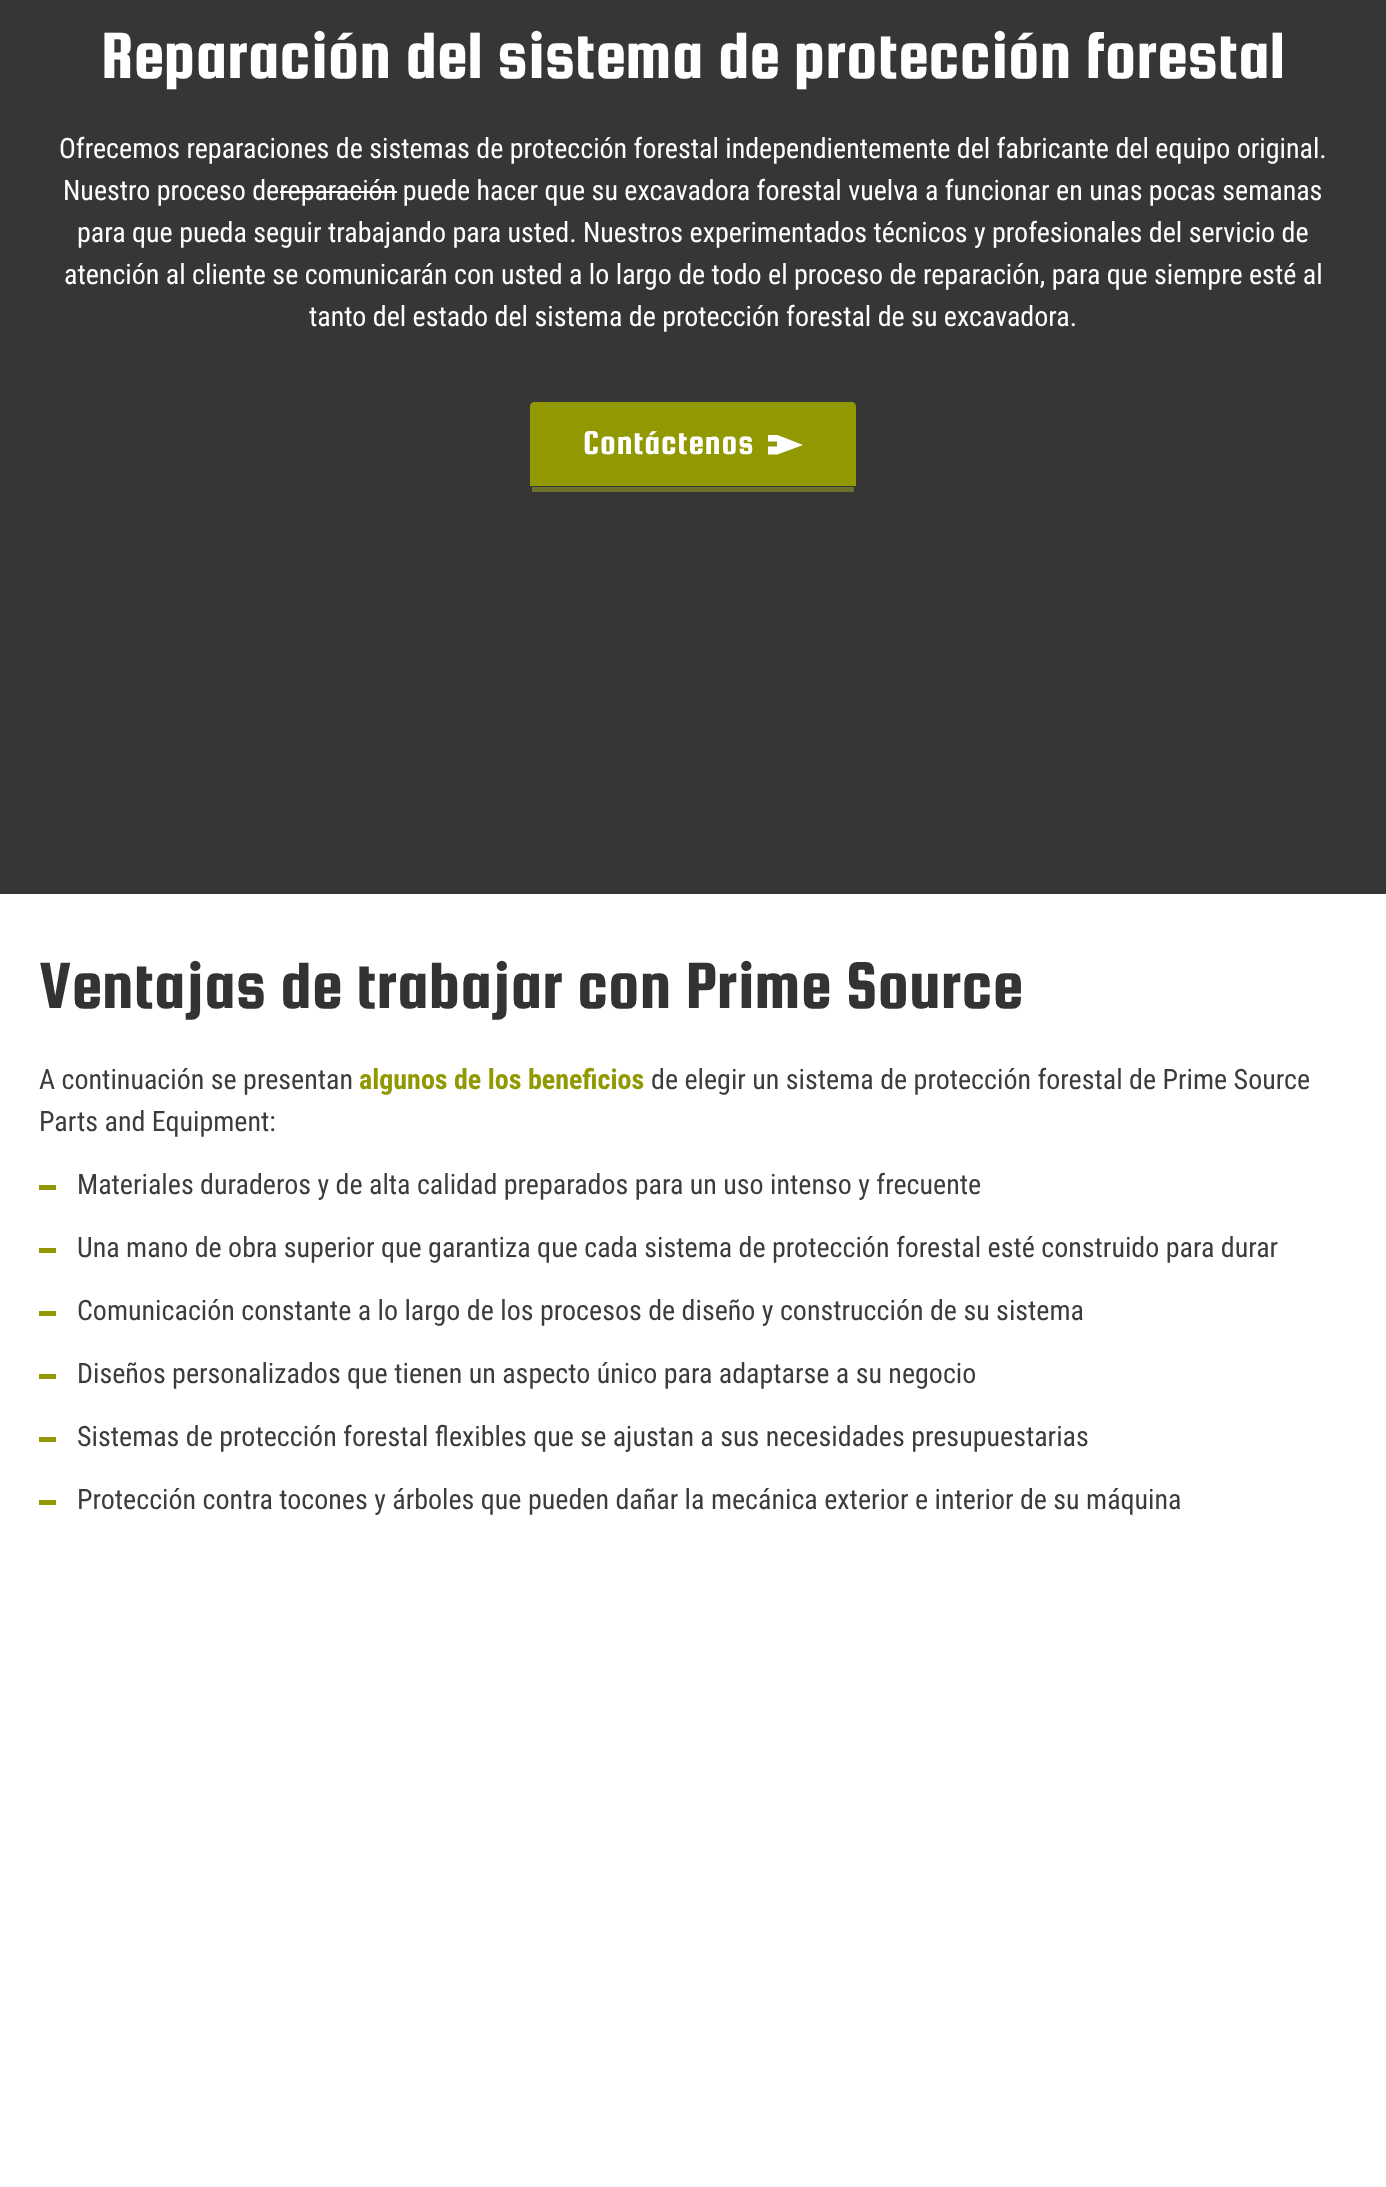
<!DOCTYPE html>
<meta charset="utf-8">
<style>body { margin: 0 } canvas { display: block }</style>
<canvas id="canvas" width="1386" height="2187"></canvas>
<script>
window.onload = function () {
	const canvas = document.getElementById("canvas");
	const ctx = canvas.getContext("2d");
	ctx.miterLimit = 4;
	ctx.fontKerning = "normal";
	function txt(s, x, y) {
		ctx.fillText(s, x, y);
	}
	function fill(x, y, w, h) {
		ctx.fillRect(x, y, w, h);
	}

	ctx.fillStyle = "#FFFFFF";
	fill(0, 0, 1386, 2187);
	ctx.fillStyle = "#363636";
	fill(0, 0, 1386, 894);
	ctx.fillStyle = "#FFFFFF";
	fill(280, 191, 117, 2);
	ctx.fillStyle = "#919800";
	ctx.beginPath();
	ctx.moveTo(534, 402);
	ctx.lineTo(852, 402);
	ctx.bezierCurveTo(854, 402, 856, 404, 856, 406);
	ctx.lineTo(856, 486);
	ctx.lineTo(530, 486);
	ctx.lineTo(530, 406);
	ctx.bezierCurveTo(530, 404, 532, 402, 534, 402);
	ctx.closePath();
	ctx.fill();
	ctx.fillStyle = "#6D712E";
	fill(532, 487, 322, 5);
	ctx.fillStyle = "#FFFFFF";
	ctx.beginPath();
	ctx.moveTo(768, 454.5);
	ctx.lineTo(768, 446.5);
	ctx.lineTo(777, 446.5);
	ctx.lineTo(777, 441.5);
	ctx.lineTo(768, 441.5);
	ctx.lineTo(768, 435);
	ctx.lineTo(777.5, 435);
	ctx.lineTo(803, 445);
	ctx.lineTo(777.5, 454.5);
	ctx.closePath();
	ctx.fill();
	ctx.fillStyle = "#919800";
	fill(39, 1185, 17, 5);
	fill(39, 1248, 17, 5);
	fill(39, 1311, 17, 5);
	fill(39, 1374, 17, 5);
	fill(39, 1437, 17, 5);
	fill(39, 1500, 17, 5);
	ctx.font = "70px Squada One";
	ctx.fillStyle = "#FFFFFF";
	txt("Reparación del sistema de protección forestal", 101, 78);
	ctx.font = "28px Roboto Condensed";
	txt("Ofrecemos reparaciones de sistemas de protección forestal independientemente del fabricante del equipo original.", 59, 158);
	txt("Nuestro proceso dereparación puede hacer que su excavadora forestal vuelva a funcionar en unas pocas semanas", 63, 200);
	txt("para que pueda seguir trabajando para usted. Nuestros experimentados técnicos y profesionales del servicio de", 77, 242);
	txt("atención al cliente se comunicarán con usted a lo largo de todo el proceso de reparación, para que siempre esté al", 64, 284);
	txt("tanto del estado del sistema de protección forestal de su excavadora.", 309, 326);
	ctx.letterSpacing = "0.9px";
	ctx.font = "35px Squada One";
	txt("Contáctenos", 583, 454);
	ctx.letterSpacing = "0px";
	ctx.font = "70px Squada One";
	ctx.fillStyle = "#333333";
	txt("Ventajas de trabajar con Prime Source", 39, 1008);
	ctx.font = "28px Roboto Condensed";
	ctx.fillStyle = "#3C3C3C";
	txt("A continuación se presentan", 39, 1089);
	ctx.font = "bold 28px Roboto Condensed";
	ctx.fillStyle = "#919800";
	txt("algunos de los beneficios", 359, 1089);
	ctx.font = "28px Roboto Condensed";
	ctx.fillStyle = "#3C3C3C";
	txt("de elegir un sistema de protección forestal de Prime Source", 651, 1089);
	txt("Parts and Equipment:", 39, 1131);
	txt("Materiales duraderos y de alta calidad preparados para un uso intenso y frecuente", 77, 1194);
	txt("Una mano de obra superior que garantiza que cada sistema de protección forestal esté construido para durar", 77, 1257);
	txt("Comunicación constante a lo largo de los procesos de diseño y construcción de su sistema", 77, 1320);
	txt("Diseños personalizados que tienen un aspecto único para adaptarse a su negocio", 77, 1383);
	txt("Sistemas de protección forestal flexibles que se ajustan a sus necesidades presupuestarias", 77, 1446);
	txt("Protección contra tocones y árboles que pueden dañar la mecánica exterior e interior de su máquina", 77, 1509);
};
</script>
